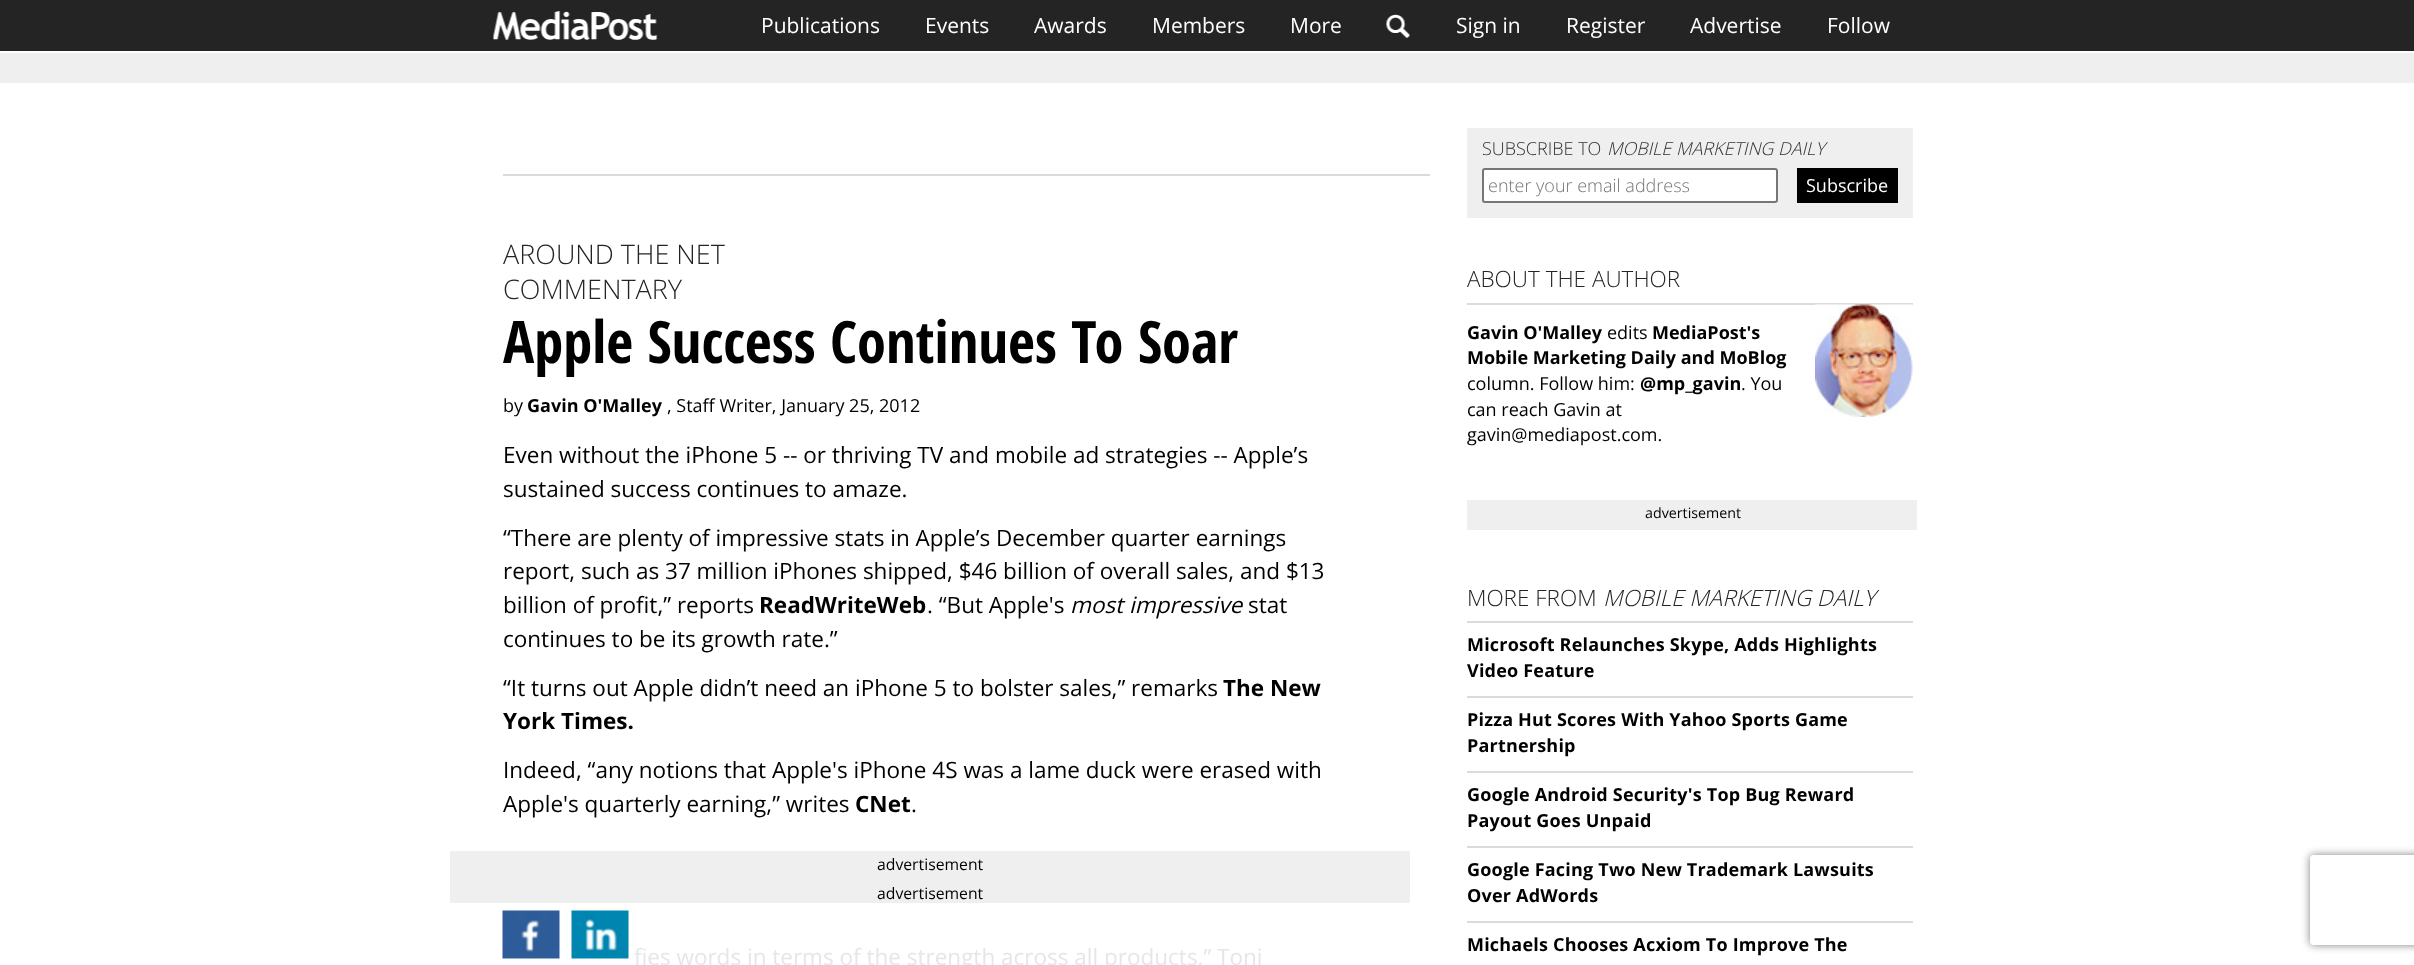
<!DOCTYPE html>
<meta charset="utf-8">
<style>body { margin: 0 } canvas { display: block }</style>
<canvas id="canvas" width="2414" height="965"></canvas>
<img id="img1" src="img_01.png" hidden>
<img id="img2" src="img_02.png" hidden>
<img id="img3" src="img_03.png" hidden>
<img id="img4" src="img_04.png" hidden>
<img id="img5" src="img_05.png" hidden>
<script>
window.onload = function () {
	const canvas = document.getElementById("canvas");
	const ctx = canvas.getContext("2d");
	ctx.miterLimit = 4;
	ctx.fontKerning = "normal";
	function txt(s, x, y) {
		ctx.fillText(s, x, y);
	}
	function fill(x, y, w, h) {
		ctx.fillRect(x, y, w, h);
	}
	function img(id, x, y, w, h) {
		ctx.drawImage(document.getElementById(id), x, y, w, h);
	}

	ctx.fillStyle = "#FFFFFF";
	fill(0, 0, 2414, 965);
	ctx.fillStyle = "#242424";
	fill(0, 0, 2414, 51);
	img("img1", 493, 11, 165, 29);
	img("img2", 1386, 14, 24, 24);
	ctx.fillStyle = "#EFEFEF";
	fill(0, 53, 2414, 30);
	ctx.fillStyle = "#DBDBDB";
	fill(503, 174, 927, 2);
	ctx.fillStyle = "#EFEFEF";
	fill(1467, 128, 446, 90);
	ctx.fillStyle = "#FFFFFF";
	ctx.beginPath();
	ctx.roundRect(1483, 169, 294, 33, 2);
	ctx.fill();
	ctx.strokeStyle = "#767676";
	ctx.lineWidth = 2;
	ctx.stroke();
	ctx.fillStyle = "#000000";
	fill(1797, 168, 101, 35);
	ctx.save();
	ctx.beginPath();
	ctx.moveTo(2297, 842);
	ctx.lineTo(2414, 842);
	ctx.lineTo(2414, 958);
	ctx.lineTo(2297, 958);
	ctx.closePath();
	ctx.moveTo(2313, 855);
	ctx.lineTo(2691, 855);
	ctx.bezierCurveTo(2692.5, 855, 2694, 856.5, 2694, 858);
	ctx.lineTo(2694, 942);
	ctx.bezierCurveTo(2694, 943.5, 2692.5, 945, 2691, 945);
	ctx.lineTo(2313, 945);
	ctx.bezierCurveTo(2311.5, 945, 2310, 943.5, 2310, 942);
	ctx.lineTo(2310, 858);
	ctx.bezierCurveTo(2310, 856.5, 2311.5, 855, 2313, 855);
	ctx.closePath();
	ctx.clip("evenodd");
	ctx.fillStyle = "#808080";
	ctx.filter = "blur(4px)";
	ctx.beginPath();
	ctx.roundRect(2310, 855, 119, 90, 3);
	ctx.fill();
	ctx.filter = "none";
	ctx.restore();
	ctx.fillStyle = "#EFEFEF";
	fill(450, 851, 960, 52);
	img("img3", 502, 910, 58, 49);
	img("img4", 571, 910, 58, 49);
	ctx.fillStyle = "#DBDBDB";
	fill(1467, 303, 446, 2);
	img("img5", 1815, 304, 98, 113);
	ctx.fillStyle = "#EFEFEF";
	fill(1467, 500, 450, 30);
	ctx.fillStyle = "#DBDBDB";
	fill(1467, 621, 446, 2);
	fill(1467, 696, 446, 2);
	fill(1467, 771, 446, 2);
	fill(1467, 846, 446, 2);
	fill(1467, 921, 446, 2);
	ctx.font = "21px Open Sans";
	ctx.fillStyle = "#FFFFFF";
	txt("Publications", 761, 33);
	txt("Events", 925, 33);
	txt("Awards", 1034, 33);
	txt("Members", 1152, 33);
	txt("More", 1290, 33);
	txt("Sign in", 1456, 33);
	txt("Register", 1566, 33);
	txt("Advertise", 1690, 33);
	txt("Follow", 1827, 33);
	ctx.font = "300 18px Open Sans";
	ctx.fillStyle = "#333333";
	txt("SUBSCRIBE TO", 1482, 155);
	ctx.font = "italic 300 18px Open Sans";
	txt("MOBILE MARKETING DAILY", 1607, 155);
	ctx.font = "300 18px Open Sans";
	ctx.fillStyle = "#757575";
	txt("enter your email address", 1488, 192);
	ctx.font = "18px Open Sans";
	ctx.fillStyle = "#FFFFFF";
	txt("Subscribe", 1806, 192);
	ctx.font = "300 27px Open Sans";
	ctx.fillStyle = "#242424";
	txt("AROUND THE NET", 503, 264);
	txt("COMMENTARY", 503, 299);
	ctx.font = "bold 58.5px Open Sans Condensed";
	ctx.fillStyle = "#000000";
	txt("Apple Success Continues To Soar", 503, 363);
	ctx.font = "18px Open Sans";
	txt("by", 503, 412);
	ctx.font = "bold 18px Open Sans";
	txt("Gavin O'Malley", 527, 412);
	ctx.font = "18px Open Sans";
	txt(", Staff Writer, January 25, 2012", 667, 412);
	ctx.font = "22.5px Open Sans";
	txt("Even without the iPhone 5 -- or thriving TV and mobile ad strategies -- Apple’s", 503, 463);
	txt("sustained success continues to amaze.", 503, 497);
	txt("“There are plenty of impressive stats in Apple’s December quarter earnings", 503, 546);
	txt("report, such as 37 million iPhones shipped, $46 billion of overall sales, and $13", 503, 579);
	txt("billion of profit,” reports", 503, 613);
	ctx.font = "bold 22.5px Open Sans";
	txt("ReadWriteWeb", 759, 613);
	ctx.font = "22.5px Open Sans";
	txt(". “But Apple's", 927, 613);
	ctx.font = "italic 22.5px Open Sans";
	txt("most impressive", 1070, 613);
	ctx.font = "22.5px Open Sans";
	txt("stat", 1248, 613);
	txt("continues to be its growth rate.”", 503, 647);
	txt("“It turns out Apple didn’t need an iPhone 5 to bolster sales,” remarks", 503, 696);
	ctx.font = "bold 22.5px Open Sans";
	txt("The New", 1223, 696);
	txt("York Times.", 503, 729);
	ctx.font = "22.5px Open Sans";
	txt("Indeed, “any notions that Apple's iPhone 4S was a lame duck were erased with", 503, 778);
	txt("Apple's quarterly earning,” writes", 503, 812);
	ctx.font = "bold 22.5px Open Sans";
	txt("CNet", 855, 812);
	ctx.font = "22.5px Open Sans";
	txt(".", 911, 812);
	ctx.font = "15.75px Open Sans";
	txt("advertisement", 877, 870);
	txt("advertisement", 877, 899);
	ctx.font = "22.5px Open Sans";
	ctx.fillStyle = "#E6E6E6";
	txt("fies words in terms of the strength across all products,” Toni", 634, 965);
	ctx.font = "300 22.5px Open Sans";
	ctx.fillStyle = "#242424";
	txt("ABOUT THE AUTHOR", 1467, 287);
	ctx.font = "bold 18px Open Sans";
	ctx.fillStyle = "#000000";
	txt("Gavin O'Malley", 1467, 339);
	ctx.font = "18px Open Sans";
	txt("edits", 1607, 339);
	ctx.font = "bold 18px Open Sans";
	txt("MediaPost's", 1652, 339);
	txt("Mobile Marketing Daily and MoBlog", 1467, 364);
	ctx.font = "18px Open Sans";
	txt("column. Follow him:", 1467, 390);
	ctx.font = "bold 18px Open Sans";
	txt("@mp_gavin", 1640, 390);
	ctx.font = "18px Open Sans";
	txt(". You", 1741, 390);
	txt("can reach Gavin at", 1467, 416);
	txt("gavin@mediapost.com.", 1467, 441);
	ctx.font = "14.25px Open Sans";
	txt("advertisement", 1645, 518);
	ctx.font = "300 22.5px Open Sans";
	ctx.fillStyle = "#242424";
	txt("MORE FROM", 1467, 606);
	ctx.font = "italic 300 22.5px Open Sans";
	txt("MOBILE MARKETING DAILY", 1603, 606);
	ctx.letterSpacing = "0.2px";
	ctx.font = "bold 18px Open Sans";
	ctx.fillStyle = "#000000";
	txt("Microsoft Relaunches Skype, Adds Highlights", 1467, 651);
	txt("Video Feature", 1467, 677);
	txt("Pizza Hut Scores With Yahoo Sports Game", 1467, 726);
	txt("Partnership", 1467, 752);
	txt("Google Android Security's Top Bug Reward", 1467, 801);
	txt("Payout Goes Unpaid", 1467, 827);
	txt("Google Facing Two New Trademark Lawsuits", 1467, 876);
	txt("Over AdWords", 1467, 902);
	txt("Michaels Chooses Acxiom To Improve The", 1467, 951);
};
</script>
